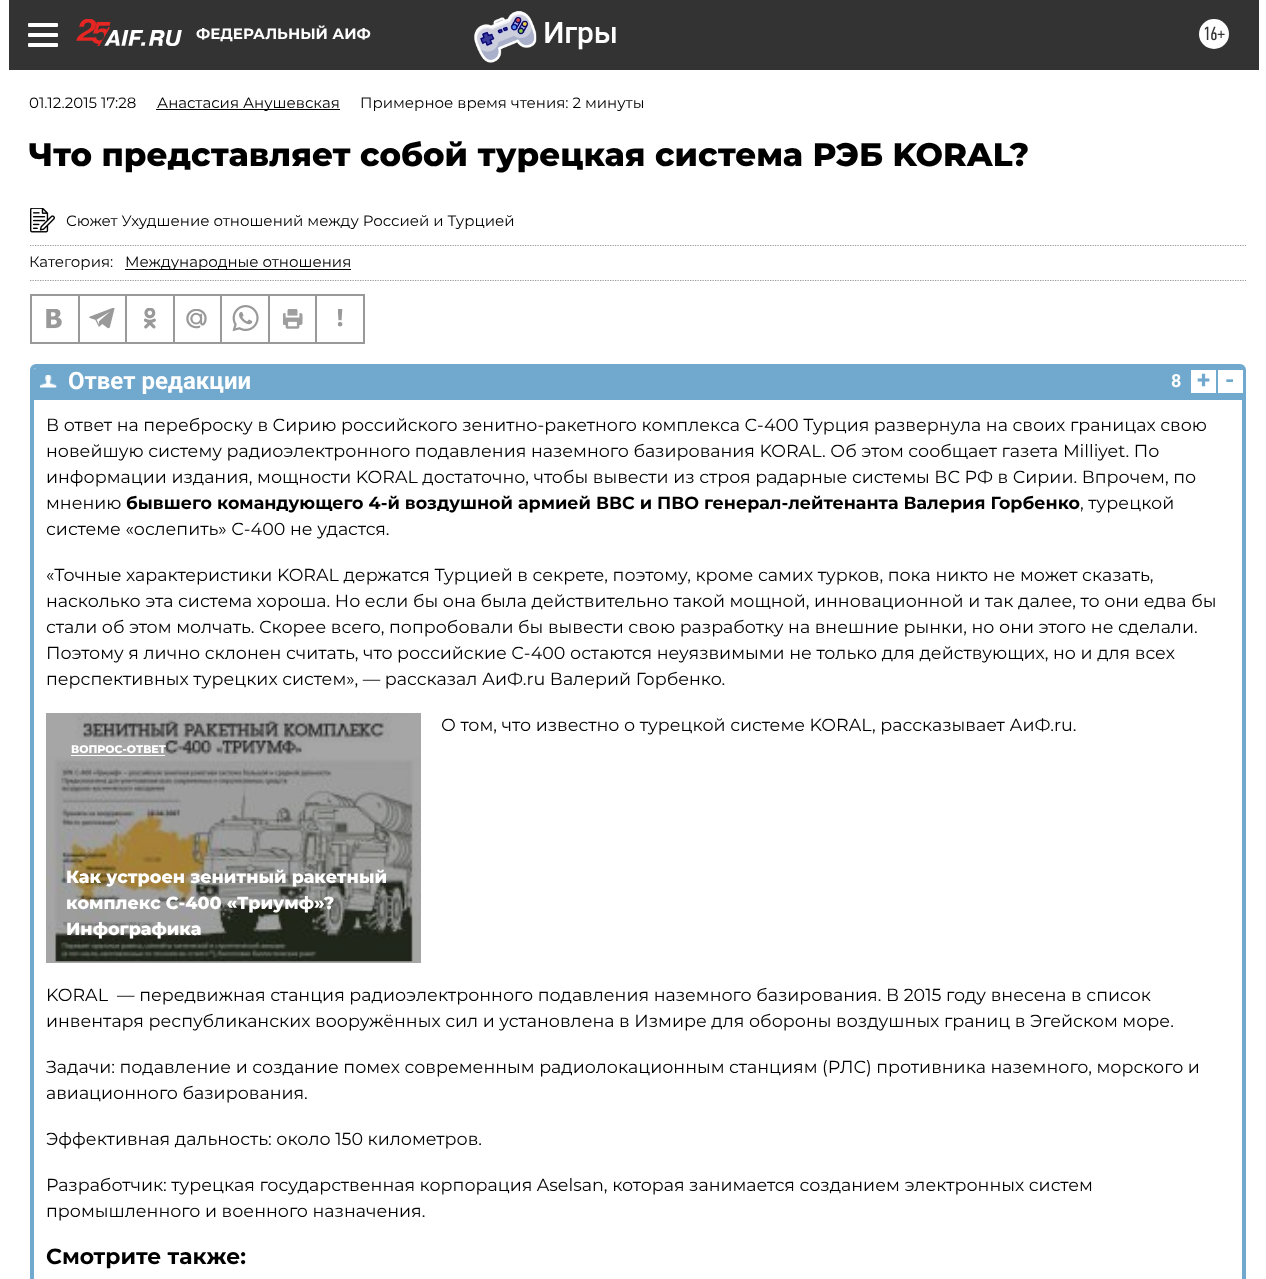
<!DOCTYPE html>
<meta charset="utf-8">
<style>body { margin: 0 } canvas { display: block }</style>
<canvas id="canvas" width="1266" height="1279"></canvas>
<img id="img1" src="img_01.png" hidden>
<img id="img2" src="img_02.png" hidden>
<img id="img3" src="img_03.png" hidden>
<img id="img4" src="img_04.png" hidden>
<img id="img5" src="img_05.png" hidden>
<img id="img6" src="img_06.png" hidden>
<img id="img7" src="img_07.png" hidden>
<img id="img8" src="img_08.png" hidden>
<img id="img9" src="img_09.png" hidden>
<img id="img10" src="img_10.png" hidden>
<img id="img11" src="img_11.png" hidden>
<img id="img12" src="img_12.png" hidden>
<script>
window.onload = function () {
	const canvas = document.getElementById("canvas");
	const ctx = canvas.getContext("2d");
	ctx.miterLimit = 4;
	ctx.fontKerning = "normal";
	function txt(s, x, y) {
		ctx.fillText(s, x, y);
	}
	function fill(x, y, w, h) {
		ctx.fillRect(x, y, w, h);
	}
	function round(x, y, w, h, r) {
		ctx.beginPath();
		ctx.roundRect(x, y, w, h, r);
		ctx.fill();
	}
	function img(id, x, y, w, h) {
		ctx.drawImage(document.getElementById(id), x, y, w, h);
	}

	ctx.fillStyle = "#FFFFFF";
	fill(0, 0, 1266, 1279);
	ctx.fillStyle = "#A6A6A6";
	fill(46, 713, 375, 250);
	ctx.fillStyle = "#333333";
	fill(9, 0, 1250, 70);
	ctx.fillStyle = "#FFFFFF";
	round(28, 23, 30, 4, 1);
	round(28, 33, 30, 4, 1);
	round(28, 43, 30, 4, 1);
	img("img1", 76, 19, 106, 27);
	img("img2", 474, 11, 142, 52);
	ctx.beginPath();
	ctx.arc(1214, 34, 15, 0, Math.PI * 2);
	ctx.fill();
	ctx.fillStyle = "#000000";
	fill(156, 109, 184, 1);
	img("img3", 30, 208, 25, 25);
	ctx.beginPath();
	ctx.moveTo(30, 245.5);
	ctx.lineTo(1246, 245.5);
	ctx.strokeStyle = "#999999";
	ctx.lineWidth = 1.2;
	ctx.setLineDash([1.25, 1.25]);
	ctx.stroke();
	ctx.beginPath();
	ctx.moveTo(30, 280.5);
	ctx.lineTo(1246, 280.5);
	ctx.stroke();
	fill(125, 269, 226, 1);
	ctx.lineWidth = 1;
	ctx.setLineDash([]);
	ctx.strokeRect(30.5, 294.5, 334, 49);
	ctx.strokeRect(31.5, 295.5, 47, 47);
	img("img4", 46, 309, 16, 20);
	ctx.strokeRect(79.5, 295.5, 46, 47);
	img("img5", 89, 308, 26, 21);
	ctx.strokeRect(126.5, 295.5, 47, 47);
	img("img6", 144, 308, 12, 21);
	ctx.strokeRect(174.5, 295.5, 46, 47);
	img("img7", 186, 309, 21, 20);
	ctx.strokeRect(221.5, 295.5, 47, 47);
	img("img8", 232, 305, 27, 27);
	ctx.strokeRect(269.5, 295.5, 46, 47);
	img("img9", 283, 309, 20, 20);
	ctx.strokeRect(316.5, 295.5, 47, 47);
	img("img10", 338, 309, 5, 18);
	ctx.beginPath();
	ctx.roundRect(32, 366, 1212, 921, 4);
	ctx.strokeStyle = "#70A8CE";
	ctx.lineWidth = 4;
	ctx.stroke();
	ctx.fillStyle = "#70A8CE";
	ctx.beginPath();
	ctx.roundRect(34, 368, 1209, 32, [2.5, 2.5, 0, 0]);
	ctx.fill();
	img("img11", 40, 375, 17, 13);
	ctx.fillStyle = "#FFFFFF";
	fill(1191, 370, 25, 23);
	fill(1218, 370, 25, 23);
	img("img12", 46, 712, 375, 250);
	fill(71, 755, 94, 1);
	ctx.font = "bold 15px Montserrat";
	txt("ФЕДЕРАЛЬНЫЙ АИФ", 196, 39);
	ctx.font = "19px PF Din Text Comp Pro";
	ctx.fillStyle = "#333333";
	txt("16+", 1203, 40);
	ctx.font = "15px Montserrat";
	ctx.fillStyle = "#000000";
	txt("01.12.2015 17:28", 29, 108);
	txt("Анастасия Анушевская", 157, 108);
	txt("Примерное время чтения: 2 минуты", 360, 108);
	ctx.font = "800 32.5px Montserrat";
	txt("Что представляет собой турецкая система РЭБ KORAL?", 29, 166);
	ctx.font = "15px Montserrat";
	txt("Сюжет Ухудшение отношений между Россией и Турцией", 66, 226);
	txt("Категория:", 29, 267);
	txt("Международные отношения", 125, 267);
	ctx.font = "bold 24px Roboto";
	ctx.fillStyle = "#FFFFFF";
	txt("Ответ редакции", 68, 389);
	ctx.font = "bold 18px Roboto";
	txt("8", 1171, 387);
	ctx.font = "bold 24px Roboto";
	ctx.fillStyle = "#70A8CE";
	txt("+", 1197, 388);
	txt("-", 1225, 388);
	ctx.font = "17.5px Montserrat";
	ctx.fillStyle = "#000000";
	txt("В ответ на переброску в Сирию российского зенитно-ракетного комплекса С-400 Турция развернула на своих границах свою", 46, 431);
	txt("новейшую систему радиоэлектронного подавления наземного базирования KORAL. Об этом сообщает газета Milliyet. По", 46, 457);
	txt("информации издания, мощности KORAL достаточно, чтобы вывести из строя радарные системы ВС РФ в Сирии. Впрочем, по", 46, 483);
	txt("мнению", 46, 509);
	ctx.font = "bold 17.5px Montserrat";
	txt("бывшего командующего 4-й воздушной армией ВВС и ПВО генерал-лейтенанта Валерия Горбенко", 126, 509);
	ctx.font = "17.5px Montserrat";
	txt(", турецкой", 1080, 509);
	txt("системе «ослепить» С-400 не удастся.", 46, 535);
	txt("«Точные характеристики KORAL держатся Турцией в секрете, поэтому, кроме самих турков, пока никто не может сказать,", 46, 581);
	txt("насколько эта система хороша. Но если бы она была действительно такой мощной, инновационной и так далее, то они едва бы", 46, 607);
	txt("стали об этом молчать. Скорее всего, попробовали бы вывести свою разработку на внешние рынки, но они этого не сделали.", 46, 633);
	txt("Поэтому я лично склонен считать, что российские С-400 остаются неуязвимыми не только для действующих, но и для всех", 46, 659);
	txt("перспективных турецких систем», — рассказал АиФ.ru Валерий Горбенко.", 46, 685);
	txt("О том, что известно о турецкой системе KORAL, рассказывает АиФ.ru.", 441, 731);
	ctx.font = "800 11px Montserrat";
	ctx.fillStyle = "#FFFFFF";
	txt("ВОПРОС-ОТВЕТ", 71, 753);
	ctx.font = "800 17.5px Montserrat";
	txt("Как устроен зенитный ракетный", 66, 883);
	txt("комплекс С-400 «Триумф»?", 66, 909);
	txt("Инфографика", 66, 935);
	ctx.font = "17.5px Montserrat";
	ctx.fillStyle = "#000000";
	txt("KORAL  — передвижная станция радиоэлектронного подавления наземного базирования. В 2015 году внесена в список", 46, 1001);
	txt("инвентаря республиканских вооружённых сил и установлена в Измире для обороны воздушных границ в Эгейском море.", 46, 1027);
	txt("Задачи: подавление и создание помех современным радиолокационным станциям (РЛС) противника наземного, морского и", 46, 1073);
	txt("авиационного базирования.", 46, 1099);
	txt("Эффективная дальность: около 150 километров.", 46, 1145);
	txt("Разработчик: турецкая государственная корпорация Aselsan, которая занимается созданием электронных систем", 46, 1191);
	txt("промышленного и военного назначения.", 46, 1217);
	ctx.font = "bold 21.9px Montserrat";
	txt("Смотрите также:", 46, 1264);
};
</script>
